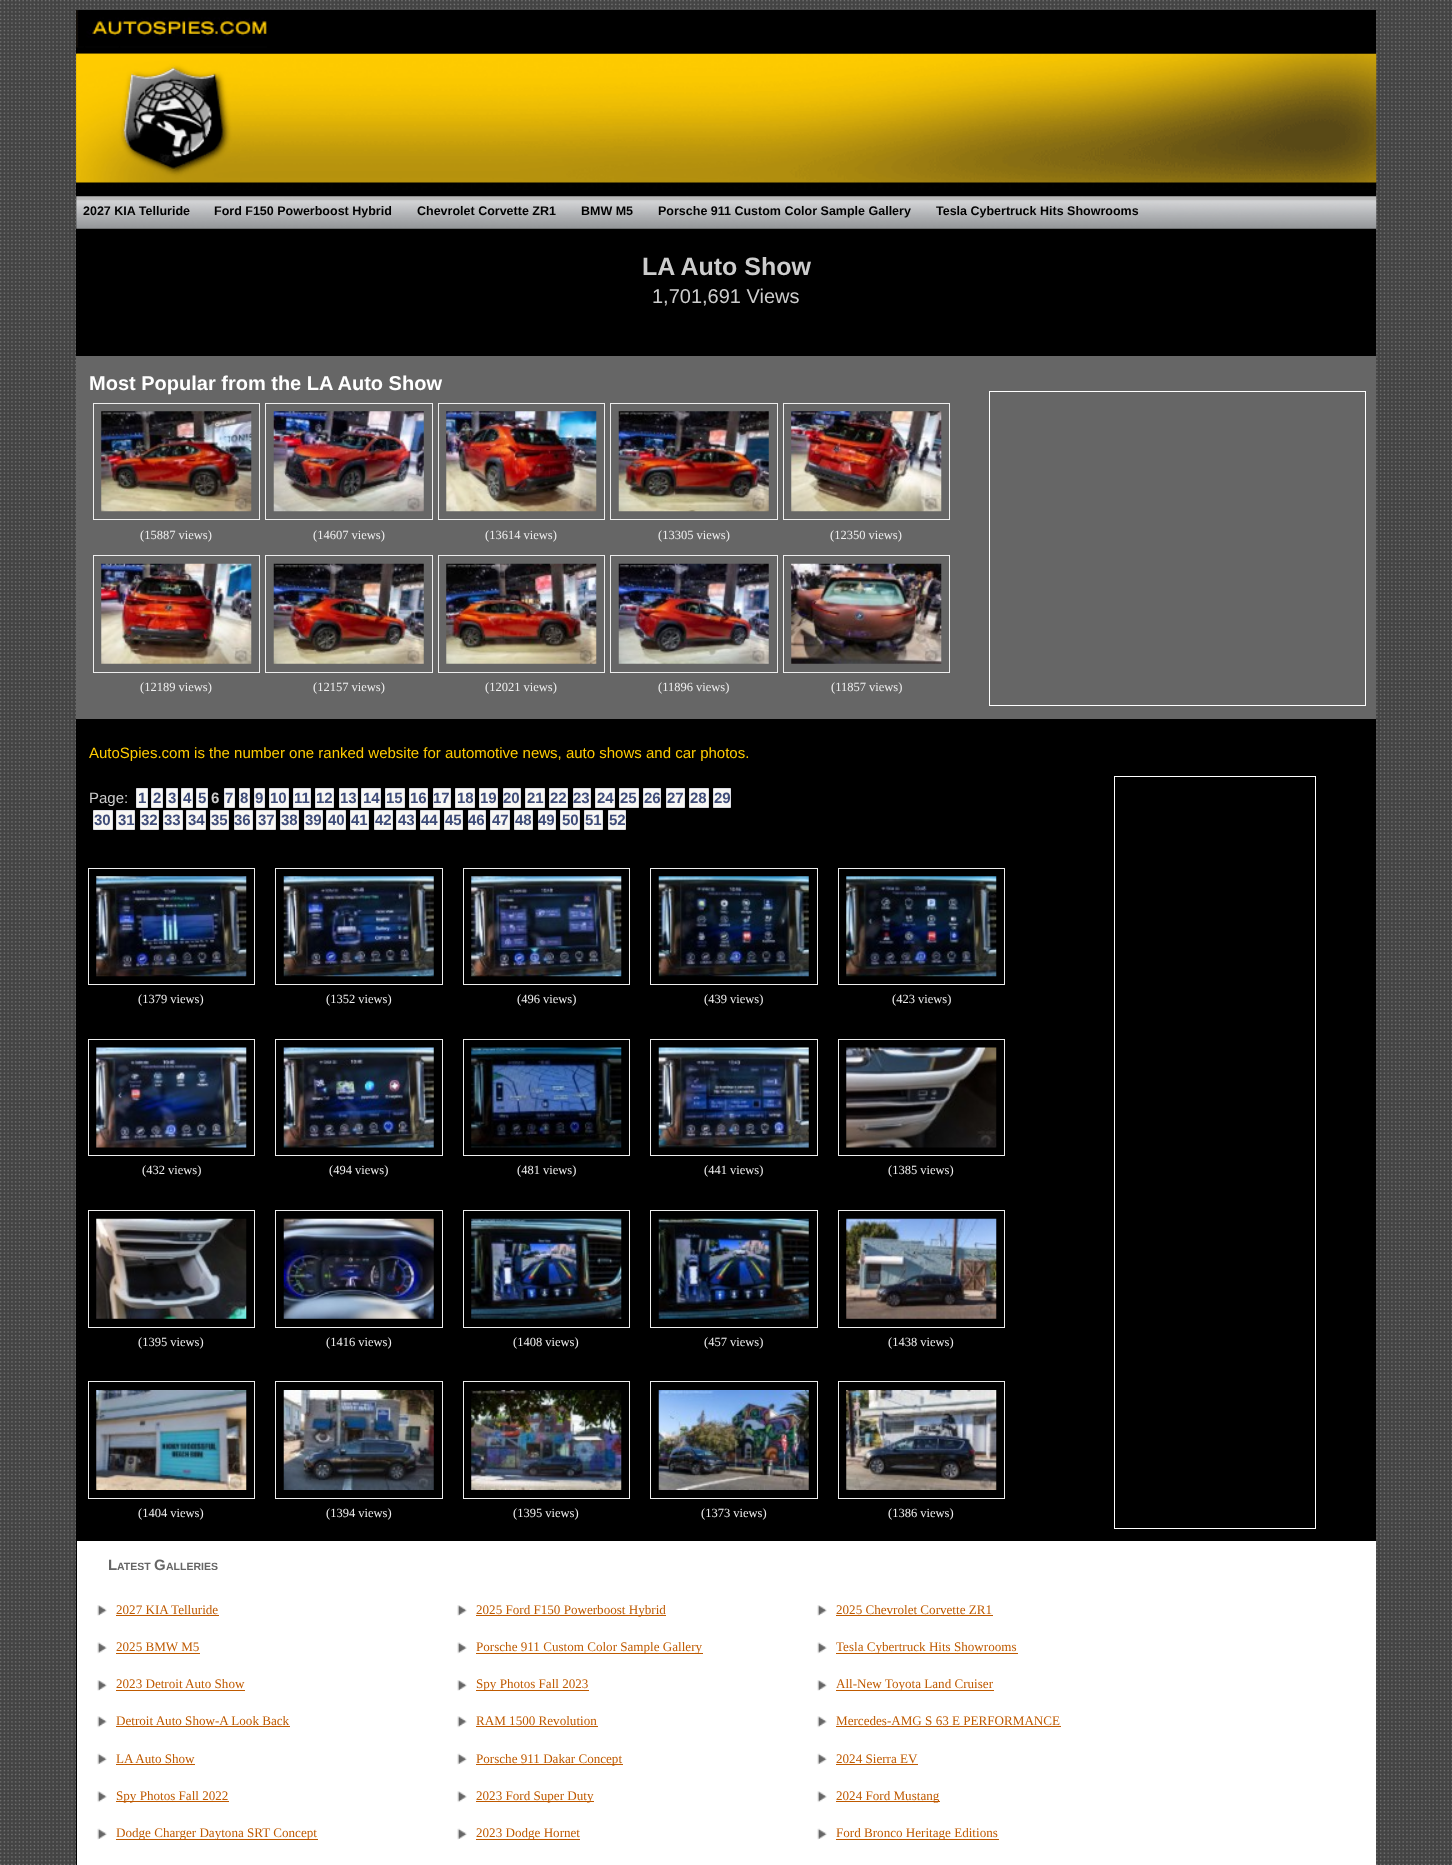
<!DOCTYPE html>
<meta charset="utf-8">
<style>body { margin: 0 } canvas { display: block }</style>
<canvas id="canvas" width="1452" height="1865"></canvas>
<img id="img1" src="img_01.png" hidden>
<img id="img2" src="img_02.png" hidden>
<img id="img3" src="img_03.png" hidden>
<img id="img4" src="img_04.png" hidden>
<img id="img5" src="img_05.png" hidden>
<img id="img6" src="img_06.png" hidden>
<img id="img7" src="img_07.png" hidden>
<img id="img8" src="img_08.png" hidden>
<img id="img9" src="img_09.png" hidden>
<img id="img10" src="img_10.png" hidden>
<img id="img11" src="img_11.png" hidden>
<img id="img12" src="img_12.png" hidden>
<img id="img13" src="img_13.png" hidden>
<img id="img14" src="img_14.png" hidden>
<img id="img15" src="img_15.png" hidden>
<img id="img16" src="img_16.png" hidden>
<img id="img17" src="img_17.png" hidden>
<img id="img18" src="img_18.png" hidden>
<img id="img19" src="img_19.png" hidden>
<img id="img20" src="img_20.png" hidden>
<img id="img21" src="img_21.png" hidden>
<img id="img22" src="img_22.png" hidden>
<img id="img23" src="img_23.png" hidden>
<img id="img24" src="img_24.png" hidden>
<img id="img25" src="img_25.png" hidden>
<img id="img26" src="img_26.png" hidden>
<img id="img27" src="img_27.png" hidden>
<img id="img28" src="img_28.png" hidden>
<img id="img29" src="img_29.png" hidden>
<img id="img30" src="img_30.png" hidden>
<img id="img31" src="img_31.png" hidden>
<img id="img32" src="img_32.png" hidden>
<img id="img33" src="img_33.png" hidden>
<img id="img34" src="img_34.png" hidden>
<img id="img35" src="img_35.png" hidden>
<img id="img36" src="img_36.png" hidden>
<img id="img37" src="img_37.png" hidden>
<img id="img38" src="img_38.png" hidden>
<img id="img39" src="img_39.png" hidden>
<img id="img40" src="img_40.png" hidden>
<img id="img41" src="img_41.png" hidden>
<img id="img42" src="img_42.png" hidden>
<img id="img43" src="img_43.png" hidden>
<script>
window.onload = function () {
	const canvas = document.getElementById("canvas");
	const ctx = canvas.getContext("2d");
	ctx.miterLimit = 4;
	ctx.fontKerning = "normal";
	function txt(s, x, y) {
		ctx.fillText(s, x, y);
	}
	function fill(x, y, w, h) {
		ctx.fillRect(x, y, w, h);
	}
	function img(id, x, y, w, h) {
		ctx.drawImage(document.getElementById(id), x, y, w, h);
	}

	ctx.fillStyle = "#FFFFFF";
	fill(0, 0, 1452, 1865);
	img("img1", 0, 0, 1452, 1865);
	ctx.fillStyle = "#000000";
	fill(76, 10, 1300, 1531);
	img("img2", 76, 10, 191, 38);
	img("img3", 76, 53, 1301, 137);
	img("img4", 76, 53, 164, 137);
	img("img5", 76, 196, 1301, 33);
	ctx.fillStyle = "#666666";
	fill(76, 356, 1300, 363);
	ctx.strokeStyle = "#EEEEEE";
	ctx.strokeRect(93.5, 403.5, 166, 116);
	img("img6", 101, 411, 151, 101);
	ctx.strokeRect(265.5, 403.5, 167, 116);
	img("img7", 273, 411, 151, 101);
	ctx.strokeRect(438.5, 403.5, 166, 116);
	img("img8", 446, 411, 151, 101);
	ctx.strokeRect(610.5, 403.5, 167, 116);
	img("img9", 618, 411, 151, 101);
	ctx.strokeRect(783.5, 403.5, 166, 116);
	img("img10", 791, 411, 151, 101);
	ctx.strokeRect(93.5, 555.5, 166, 117);
	img("img11", 101, 563, 151, 101);
	ctx.strokeRect(265.5, 555.5, 167, 117);
	img("img12", 273, 563, 151, 101);
	ctx.strokeRect(438.5, 555.5, 166, 117);
	img("img13", 446, 563, 151, 101);
	ctx.strokeRect(610.5, 555.5, 167, 117);
	img("img14", 618, 563, 151, 101);
	ctx.strokeRect(783.5, 555.5, 166, 117);
	img("img15", 791, 563, 151, 101);
	ctx.strokeStyle = "#FFFFFF";
	ctx.strokeRect(989.5, 391.5, 376, 314);
	ctx.fillStyle = "#F8F7F4";
	ctx.beginPath();
	ctx.rect(136.5, 788.5, 11, 19);
	ctx.fill();
	ctx.strokeStyle = "#DCDDE4";
	ctx.stroke();
	ctx.beginPath();
	ctx.rect(151.5, 788.5, 11, 19);
	ctx.fill();
	ctx.stroke();
	ctx.beginPath();
	ctx.rect(166.5, 788.5, 11, 19);
	ctx.fill();
	ctx.stroke();
	ctx.beginPath();
	ctx.rect(181.5, 788.5, 11, 19);
	ctx.fill();
	ctx.stroke();
	ctx.beginPath();
	ctx.rect(196.5, 788.5, 11, 19);
	ctx.fill();
	ctx.stroke();
	ctx.beginPath();
	ctx.rect(224.5, 788.5, 10, 19);
	ctx.fill();
	ctx.stroke();
	ctx.beginPath();
	ctx.rect(239.5, 788.5, 10, 19);
	ctx.fill();
	ctx.stroke();
	ctx.beginPath();
	ctx.rect(254.5, 788.5, 10, 19);
	ctx.fill();
	ctx.stroke();
	ctx.beginPath();
	ctx.rect(269.5, 788.5, 19, 19);
	ctx.fill();
	ctx.stroke();
	ctx.beginPath();
	ctx.rect(293.5, 788.5, 17, 19);
	ctx.fill();
	ctx.stroke();
	ctx.beginPath();
	ctx.rect(315.5, 788.5, 18, 19);
	ctx.fill();
	ctx.stroke();
	ctx.beginPath();
	ctx.rect(339.5, 788.5, 18, 19);
	ctx.fill();
	ctx.stroke();
	ctx.beginPath();
	ctx.rect(361.5, 788.5, 19, 19);
	ctx.fill();
	ctx.stroke();
	ctx.beginPath();
	ctx.rect(385.5, 788.5, 19, 19);
	ctx.fill();
	ctx.stroke();
	ctx.beginPath();
	ctx.rect(409.5, 788.5, 18, 19);
	ctx.fill();
	ctx.stroke();
	ctx.beginPath();
	ctx.rect(433.5, 788.5, 17, 19);
	ctx.fill();
	ctx.stroke();
	ctx.beginPath();
	ctx.rect(455.5, 788.5, 19, 19);
	ctx.fill();
	ctx.stroke();
	ctx.beginPath();
	ctx.rect(479.5, 788.5, 18, 19);
	ctx.fill();
	ctx.stroke();
	ctx.beginPath();
	ctx.rect(503.5, 788.5, 17, 19);
	ctx.fill();
	ctx.stroke();
	ctx.beginPath();
	ctx.rect(525.5, 788.5, 19, 19);
	ctx.fill();
	ctx.stroke();
	ctx.beginPath();
	ctx.rect(549.5, 788.5, 18, 19);
	ctx.fill();
	ctx.stroke();
	ctx.beginPath();
	ctx.rect(573.5, 788.5, 17, 19);
	ctx.fill();
	ctx.stroke();
	ctx.beginPath();
	ctx.rect(595.5, 788.5, 19, 19);
	ctx.fill();
	ctx.stroke();
	ctx.beginPath();
	ctx.rect(619.5, 788.5, 19, 19);
	ctx.fill();
	ctx.stroke();
	ctx.beginPath();
	ctx.rect(643.5, 788.5, 17, 19);
	ctx.fill();
	ctx.stroke();
	ctx.beginPath();
	ctx.rect(666.5, 788.5, 18, 19);
	ctx.fill();
	ctx.stroke();
	ctx.beginPath();
	ctx.rect(689.5, 788.5, 19, 19);
	ctx.fill();
	ctx.stroke();
	ctx.beginPath();
	ctx.rect(713.5, 788.5, 17, 19);
	ctx.fill();
	ctx.stroke();
	ctx.beginPath();
	ctx.rect(93.5, 810.5, 19, 19);
	ctx.fill();
	ctx.stroke();
	ctx.beginPath();
	ctx.rect(116.5, 810.5, 18, 19);
	ctx.fill();
	ctx.stroke();
	ctx.beginPath();
	ctx.rect(140.5, 810.5, 18, 19);
	ctx.fill();
	ctx.stroke();
	ctx.beginPath();
	ctx.rect(163.5, 810.5, 19, 19);
	ctx.fill();
	ctx.stroke();
	ctx.beginPath();
	ctx.rect(186.5, 810.5, 19, 19);
	ctx.fill();
	ctx.stroke();
	ctx.beginPath();
	ctx.rect(210.5, 810.5, 18, 19);
	ctx.fill();
	ctx.stroke();
	ctx.beginPath();
	ctx.rect(234.5, 810.5, 18, 19);
	ctx.fill();
	ctx.stroke();
	ctx.beginPath();
	ctx.rect(256.5, 810.5, 19, 19);
	ctx.fill();
	ctx.stroke();
	ctx.beginPath();
	ctx.rect(280.5, 810.5, 18, 19);
	ctx.fill();
	ctx.stroke();
	ctx.beginPath();
	ctx.rect(304.5, 810.5, 18, 19);
	ctx.fill();
	ctx.stroke();
	ctx.beginPath();
	ctx.rect(326.5, 810.5, 19, 19);
	ctx.fill();
	ctx.stroke();
	ctx.beginPath();
	ctx.rect(350.5, 810.5, 18, 19);
	ctx.fill();
	ctx.stroke();
	ctx.beginPath();
	ctx.rect(374.5, 810.5, 18, 19);
	ctx.fill();
	ctx.stroke();
	ctx.beginPath();
	ctx.rect(396.5, 810.5, 19, 19);
	ctx.fill();
	ctx.stroke();
	ctx.beginPath();
	ctx.rect(420.5, 810.5, 19, 19);
	ctx.fill();
	ctx.stroke();
	ctx.beginPath();
	ctx.rect(444.5, 810.5, 18, 19);
	ctx.fill();
	ctx.stroke();
	ctx.beginPath();
	ctx.rect(468.5, 810.5, 17, 19);
	ctx.fill();
	ctx.stroke();
	ctx.beginPath();
	ctx.rect(490.5, 810.5, 19, 19);
	ctx.fill();
	ctx.stroke();
	ctx.beginPath();
	ctx.rect(514.5, 810.5, 18, 19);
	ctx.fill();
	ctx.stroke();
	ctx.beginPath();
	ctx.rect(538.5, 810.5, 17, 19);
	ctx.fill();
	ctx.stroke();
	ctx.beginPath();
	ctx.rect(560.5, 810.5, 19, 19);
	ctx.fill();
	ctx.stroke();
	ctx.beginPath();
	ctx.rect(584.5, 810.5, 18, 19);
	ctx.fill();
	ctx.stroke();
	ctx.beginPath();
	ctx.rect(608.5, 810.5, 17, 19);
	ctx.fill();
	ctx.stroke();
	ctx.strokeStyle = "#FFFFFF";
	ctx.strokeRect(1114.5, 776.5, 201, 752);
	ctx.strokeStyle = "#EEEEEE";
	ctx.strokeRect(88.5, 868.5, 166, 116);
	img("img16", 96, 876, 151, 101);
	ctx.strokeRect(275.5, 868.5, 167, 116);
	img("img17", 283, 876, 151, 101);
	ctx.strokeRect(463.5, 868.5, 166, 116);
	img("img18", 471, 876, 151, 101);
	ctx.strokeRect(650.5, 868.5, 167, 116);
	img("img19", 658, 876, 151, 101);
	ctx.strokeRect(838.5, 868.5, 166, 116);
	img("img20", 846, 876, 151, 101);
	ctx.strokeRect(88.5, 1039.5, 166, 116);
	img("img21", 96, 1047, 151, 101);
	ctx.strokeRect(275.5, 1039.5, 167, 116);
	img("img22", 283, 1047, 151, 101);
	ctx.strokeRect(463.5, 1039.5, 166, 116);
	img("img23", 471, 1047, 151, 101);
	ctx.strokeRect(650.5, 1039.5, 167, 116);
	img("img24", 658, 1047, 151, 101);
	ctx.strokeRect(838.5, 1039.5, 166, 116);
	img("img25", 846, 1047, 151, 101);
	ctx.strokeRect(88.5, 1210.5, 166, 117);
	img("img26", 96, 1218, 151, 101);
	ctx.strokeRect(275.5, 1210.5, 167, 117);
	img("img27", 283, 1218, 151, 101);
	ctx.strokeRect(463.5, 1210.5, 166, 117);
	img("img28", 471, 1218, 151, 101);
	ctx.strokeRect(650.5, 1210.5, 167, 117);
	img("img29", 658, 1218, 151, 101);
	ctx.strokeRect(838.5, 1210.5, 166, 117);
	img("img30", 846, 1218, 151, 101);
	ctx.strokeRect(88.5, 1381.5, 166, 117);
	img("img31", 96, 1390, 151, 100);
	ctx.strokeRect(275.5, 1381.5, 167, 117);
	img("img32", 283, 1390, 151, 100);
	ctx.strokeRect(463.5, 1381.5, 166, 117);
	img("img33", 471, 1390, 151, 100);
	ctx.strokeRect(650.5, 1381.5, 167, 117);
	img("img34", 658, 1390, 151, 100);
	ctx.strokeRect(838.5, 1381.5, 166, 117);
	img("img35", 846, 1390, 151, 100);
	ctx.fillStyle = "#FFFFFF";
	fill(77, 1541, 1299, 324);
	ctx.fillStyle = "#000000";
	fill(76, 1541, 1, 324);
	img("img36", 97, 1605, 10, 11);
	ctx.fillStyle = "#BF5A00";
	fill(116, 1615, 103, 1);
	img("img36", 457, 1605, 10, 11);
	fill(476, 1615, 190, 1);
	img("img37", 817, 1605, 10, 11);
	fill(836, 1615, 157, 1);
	img("img38", 97, 1642, 10, 12);
	fill(116, 1653, 84, 1);
	img("img38", 457, 1642, 10, 12);
	fill(476, 1653, 227, 1);
	img("img39", 817, 1642, 10, 12);
	fill(836, 1653, 182, 1);
	img("img36", 97, 1680, 10, 11);
	fill(116, 1690, 129, 1);
	img("img36", 457, 1680, 10, 11);
	fill(476, 1690, 113, 1);
	img("img37", 817, 1680, 10, 11);
	fill(836, 1690, 158, 1);
	img("img40", 97, 1716, 10, 12);
	fill(116, 1726, 174, 1);
	img("img40", 457, 1716, 10, 12);
	fill(476, 1726, 122, 1);
	img("img41", 817, 1716, 10, 12);
	fill(836, 1726, 225, 1);
	img("img42", 97, 1753, 10, 12);
	fill(116, 1764, 79, 1);
	img("img42", 457, 1753, 10, 12);
	fill(476, 1764, 147, 1);
	img("img43", 817, 1753, 10, 12);
	fill(836, 1764, 82, 1);
	img("img40", 97, 1791, 10, 12);
	fill(116, 1801, 113, 1);
	img("img40", 457, 1791, 10, 12);
	fill(476, 1801, 118, 1);
	img("img41", 817, 1791, 10, 12);
	fill(836, 1801, 104, 1);
	img("img42", 97, 1828, 10, 12);
	fill(116, 1839, 202, 1);
	img("img42", 457, 1828, 10, 12);
	fill(476, 1839, 104, 1);
	img("img43", 817, 1828, 10, 12);
	fill(836, 1839, 163, 1);
	ctx.font = "bold 12.5px Liberation Sans";
	ctx.fillStyle = "#000000";
	txt("2027 KIA Telluride", 83, 215);
	txt("Ford F150 Powerboost Hybrid", 214, 215);
	txt("Chevrolet Corvette ZR1", 417, 215);
	txt("BMW M5", 581, 215);
	txt("Porsche 911 Custom Color Sample Gallery", 658, 215);
	txt("Tesla Cybertruck Hits Showrooms", 936, 215);
	ctx.font = "bold 25px Liberation Sans";
	ctx.fillStyle = "#CCCCCC";
	txt("LA Auto Show", 642, 275);
	ctx.font = "20px Liberation Sans";
	txt("1,701,691 Views", 652, 303);
	ctx.font = "bold 20px Liberation Sans";
	ctx.fillStyle = "#FFFFFF";
	txt("Most Popular from the LA Auto Show", 89, 390);
	ctx.font = "12.5px Liberation Serif";
	ctx.fillStyle = "#EEEEEE";
	txt("(15887 views)", 140, 539);
	txt("(14607 views)", 313, 539);
	txt("(13614 views)", 485, 539);
	txt("(13305 views)", 658, 539);
	txt("(12350 views)", 830, 539);
	txt("(12189 views)", 140, 691);
	txt("(12157 views)", 313, 691);
	txt("(12021 views)", 485, 691);
	txt("(11896 views)", 658, 691);
	txt("(11857 views)", 831, 691);
	ctx.font = "15px Liberation Sans";
	ctx.fillStyle = "#FFCC00";
	txt("AutoSpies.com is the number one ranked website for automotive news, auto shows and car photos.", 89, 758);
	ctx.fillStyle = "#CCCCCC";
	txt("Page:", 89, 803);
	ctx.font = "bold 15px Liberation Sans";
	ctx.fillStyle = "#3D4B78";
	txt("1", 138, 803);
	txt("2", 153, 803);
	txt("3", 168, 803);
	txt("4", 183, 803);
	txt("5", 198, 803);
	ctx.fillStyle = "#CCCCCC";
	txt("6", 211, 803);
	ctx.fillStyle = "#3D4B78";
	txt("7", 225, 803);
	txt("8", 240, 803);
	txt("9", 255, 803);
	txt("10", 270, 803);
	txt("11", 294, 803);
	txt("12", 316, 803);
	txt("13", 340, 803);
	txt("14", 363, 803);
	txt("15", 386, 803);
	txt("16", 410, 803);
	txt("17", 433, 803);
	txt("18", 457, 803);
	txt("19", 480, 803);
	txt("20", 503, 803);
	txt("21", 527, 803);
	txt("22", 550, 803);
	txt("23", 573, 803);
	txt("24", 597, 803);
	txt("25", 620, 803);
	txt("26", 644, 803);
	txt("27", 667, 803);
	txt("28", 690, 803);
	txt("29", 714, 803);
	txt("30", 94, 825);
	txt("31", 118, 825);
	txt("32", 141, 825);
	txt("33", 164, 825);
	txt("34", 188, 825);
	txt("35", 211, 825);
	txt("36", 234, 825);
	txt("37", 258, 825);
	txt("38", 281, 825);
	txt("39", 305, 825);
	txt("40", 328, 825);
	txt("41", 351, 825);
	txt("42", 375, 825);
	txt("43", 398, 825);
	txt("44", 421, 825);
	txt("45", 445, 825);
	txt("46", 468, 825);
	txt("47", 492, 825);
	txt("48", 515, 825);
	txt("49", 538, 825);
	txt("50", 562, 825);
	txt("51", 585, 825);
	txt("52", 609, 825);
	ctx.font = "12.5px Liberation Serif";
	ctx.fillStyle = "#EEEEEE";
	txt("(1379 views)", 138, 1003);
	txt("(1352 views)", 326, 1003);
	txt("(496 views)", 517, 1003);
	txt("(439 views)", 704, 1003);
	txt("(423 views)", 892, 1003);
	txt("(432 views)", 142, 1174);
	txt("(494 views)", 329, 1174);
	txt("(481 views)", 517, 1174);
	txt("(441 views)", 704, 1174);
	txt("(1385 views)", 888, 1174);
	txt("(1395 views)", 138, 1346);
	txt("(1416 views)", 326, 1346);
	txt("(1408 views)", 513, 1346);
	txt("(457 views)", 704, 1346);
	txt("(1438 views)", 888, 1346);
	txt("(1404 views)", 138, 1517);
	txt("(1394 views)", 326, 1517);
	txt("(1395 views)", 513, 1517);
	txt("(1373 views)", 701, 1517);
	txt("(1386 views)", 888, 1517);
	ctx.font = "bold 15px Liberation Sans";
	ctx.fillStyle = "#666666";
	txt("L", 108, 1570);
	ctx.font = "bold 10.5px Liberation Sans";
	txt("ATEST", 117, 1570);
	ctx.font = "bold 15px Liberation Sans";
	txt("G", 154, 1570);
	ctx.font = "bold 10.5px Liberation Sans";
	txt("ALLERIES", 166, 1570);
	ctx.font = "13.1px Liberation Serif";
	ctx.fillStyle = "#BF5A00";
	txt("2027 KIA Telluride", 116, 1614);
	txt("2025 Ford F150 Powerboost Hybrid", 476, 1614);
	txt("2025 Chevrolet Corvette ZR1", 836, 1614);
	txt("2025 BMW M5", 116, 1651);
	txt("Porsche 911 Custom Color Sample Gallery", 476, 1651);
	txt("Tesla Cybertruck Hits Showrooms", 836, 1651);
	txt("2023 Detroit Auto Show", 116, 1688);
	txt("Spy Photos Fall 2023", 476, 1688);
	txt("All-New Toyota Land Cruiser", 836, 1688);
	txt("Detroit Auto Show-A Look Back", 116, 1725);
	txt("RAM 1500 Revolution", 476, 1725);
	txt("Mercedes-AMG S 63 E PERFORMANCE", 836, 1725);
	txt("LA Auto Show", 116, 1763);
	txt("Porsche 911 Dakar Concept", 476, 1763);
	txt("2024 Sierra EV", 836, 1763);
	txt("Spy Photos Fall 2022", 116, 1800);
	txt("2023 Ford Super Duty", 476, 1800);
	txt("2024 Ford Mustang", 836, 1800);
	txt("Dodge Charger Daytona SRT Concept", 116, 1837);
	txt("2023 Dodge Hornet", 476, 1837);
	txt("Ford Bronco Heritage Editions", 836, 1837);
};
</script>
